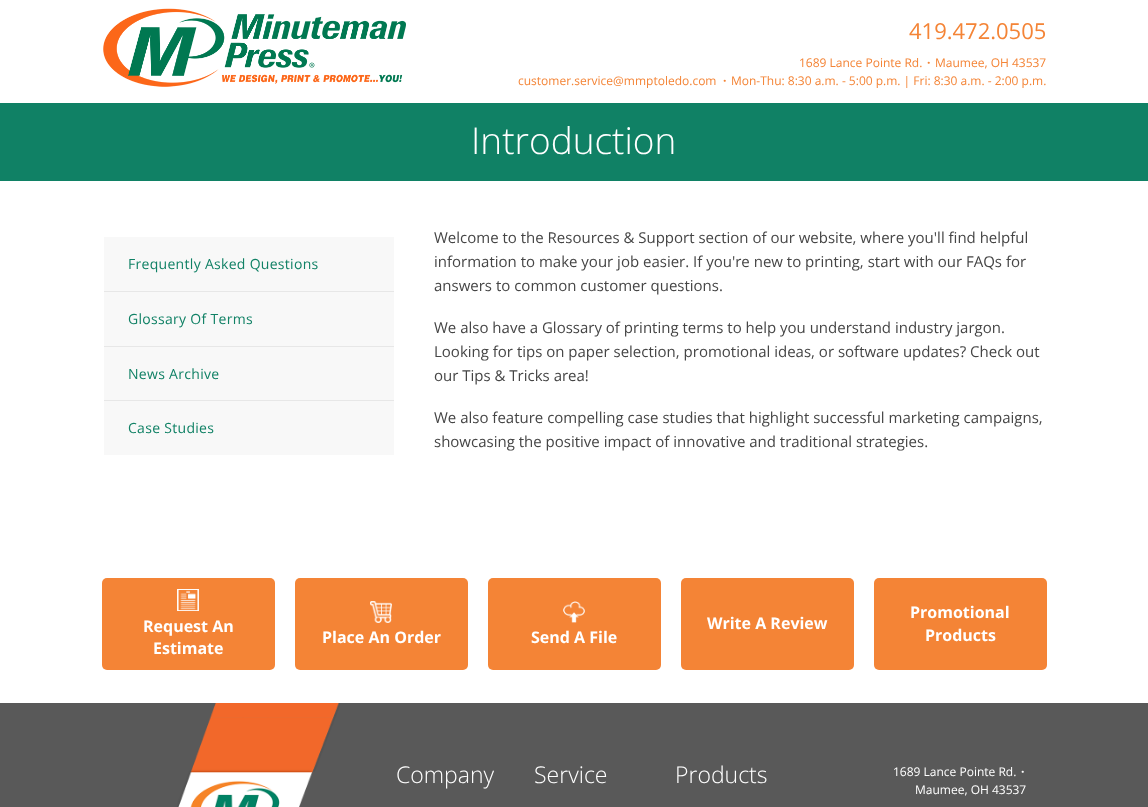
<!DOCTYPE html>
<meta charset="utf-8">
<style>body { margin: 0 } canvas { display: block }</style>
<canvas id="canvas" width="1148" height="807"></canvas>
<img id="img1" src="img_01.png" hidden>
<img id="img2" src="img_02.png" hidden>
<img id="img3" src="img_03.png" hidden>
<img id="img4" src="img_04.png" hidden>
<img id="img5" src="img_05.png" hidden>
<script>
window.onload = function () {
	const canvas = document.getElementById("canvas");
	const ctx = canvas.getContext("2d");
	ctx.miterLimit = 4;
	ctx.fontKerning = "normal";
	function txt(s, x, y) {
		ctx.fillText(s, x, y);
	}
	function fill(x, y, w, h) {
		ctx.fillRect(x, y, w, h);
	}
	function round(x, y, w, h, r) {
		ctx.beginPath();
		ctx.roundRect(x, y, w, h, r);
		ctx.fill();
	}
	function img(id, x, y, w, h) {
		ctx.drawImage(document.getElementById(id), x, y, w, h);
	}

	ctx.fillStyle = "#FFFFFF";
	fill(0, 0, 1148, 807);
	img("img1", 103, 8, 303, 79);
	ctx.fillStyle = "#108165";
	fill(0, 103, 1148, 78);
	ctx.fillStyle = "#F8F8F8";
	fill(104, 237, 290, 54);
	ctx.fillStyle = "#E7E7E7";
	fill(104, 291, 290, 1);
	ctx.fillStyle = "#F8F8F8";
	fill(104, 292, 290, 54);
	ctx.fillStyle = "#E7E7E7";
	fill(104, 346, 290, 1);
	ctx.fillStyle = "#F8F8F8";
	fill(104, 347, 290, 53);
	ctx.fillStyle = "#E7E7E7";
	fill(104, 400, 290, 1);
	ctx.fillStyle = "#F8F8F8";
	fill(104, 401, 290, 54);
	ctx.fillStyle = "#F48436";
	round(102, 578, 173, 92, 5);
	img("img2", 177, 589, 22, 22);
	round(295, 578, 173, 92, 5);
	img("img3", 370, 601, 22, 22);
	round(488, 578, 173, 92, 5);
	img("img4", 563, 601, 22, 22);
	round(681, 578, 173, 92, 5);
	round(874, 578, 173, 92, 5);
	ctx.fillStyle = "#595959";
	fill(0, 703, 1148, 104);
	img("img5", 177, 703, 163, 104);
	ctx.font = "22px Open Sans";
	ctx.fillStyle = "#F48436";
	txt("419.472.0505", 909, 39);
	ctx.font = "12px Open Sans";
	txt("1689 Lance Pointe Rd.", 799, 67);
	ctx.font = "bold 12px Open Sans";
	txt("·", 927, 67);
	ctx.font = "12px Open Sans";
	txt("Maumee, OH 43537", 935, 67);
	txt("customer.service@mmptoledo.com", 518, 85);
	ctx.font = "bold 12px Open Sans";
	txt("·", 723, 85);
	ctx.font = "12px Open Sans";
	txt("Mon-Thu: 8:30 a.m. - 5:00 p.m. | Fri: 8:30 a.m. - 2:00 p.m.", 731, 85);
	ctx.font = "300 37px Open Sans";
	ctx.fillStyle = "#FFFFFF";
	txt("Introduction", 471, 154);
	ctx.letterSpacing = "0.3px";
	ctx.font = "14px Open Sans";
	ctx.fillStyle = "#108165";
	txt("Frequently Asked Questions", 128, 269);
	txt("Glossary Of Terms", 128, 324);
	txt("News Archive", 128, 379);
	txt("Case Studies", 128, 433);
	ctx.letterSpacing = "0px";
	ctx.font = "15px Open Sans";
	ctx.fillStyle = "#454545";
	txt("Welcome to the Resources & Support section of our website, where you'll find helpful", 434, 243);
	txt("information to make your job easier. If you're new to printing, start with our FAQs for", 434, 267);
	txt("answers to common customer questions.", 434, 291);
	txt("We also have a Glossary of printing terms to help you understand industry jargon.", 434, 333);
	txt("Looking for tips on paper selection, promotional ideas, or software updates? Check out", 434, 357);
	txt("our Tips & Tricks area!", 434, 381);
	txt("We also feature compelling case studies that highlight successful marketing campaigns,", 434, 423);
	txt("showcasing the positive impact of innovative and traditional strategies.", 434, 447);
	ctx.font = "bold 16px Open Sans";
	ctx.fillStyle = "#FFFFFF";
	txt("Request An", 143, 632);
	txt("Estimate", 153, 654);
	txt("Place An Order", 322, 643);
	txt("Send A File", 531, 643);
	txt("Write A Review", 707, 629);
	txt("Promotional", 910, 618);
	txt("Products", 925, 641);
	ctx.font = "300 23px Open Sans";
	txt("Company", 396, 783);
	txt("Service", 534, 783);
	txt("Products", 675, 783);
	ctx.font = "12px Open Sans";
	txt("1689 Lance Pointe Rd.", 893, 776);
	ctx.font = "bold 12px Open Sans";
	txt("·", 1021, 776);
	ctx.font = "12px Open Sans";
	txt("Maumee, OH 43537", 915, 794);
};
</script>
